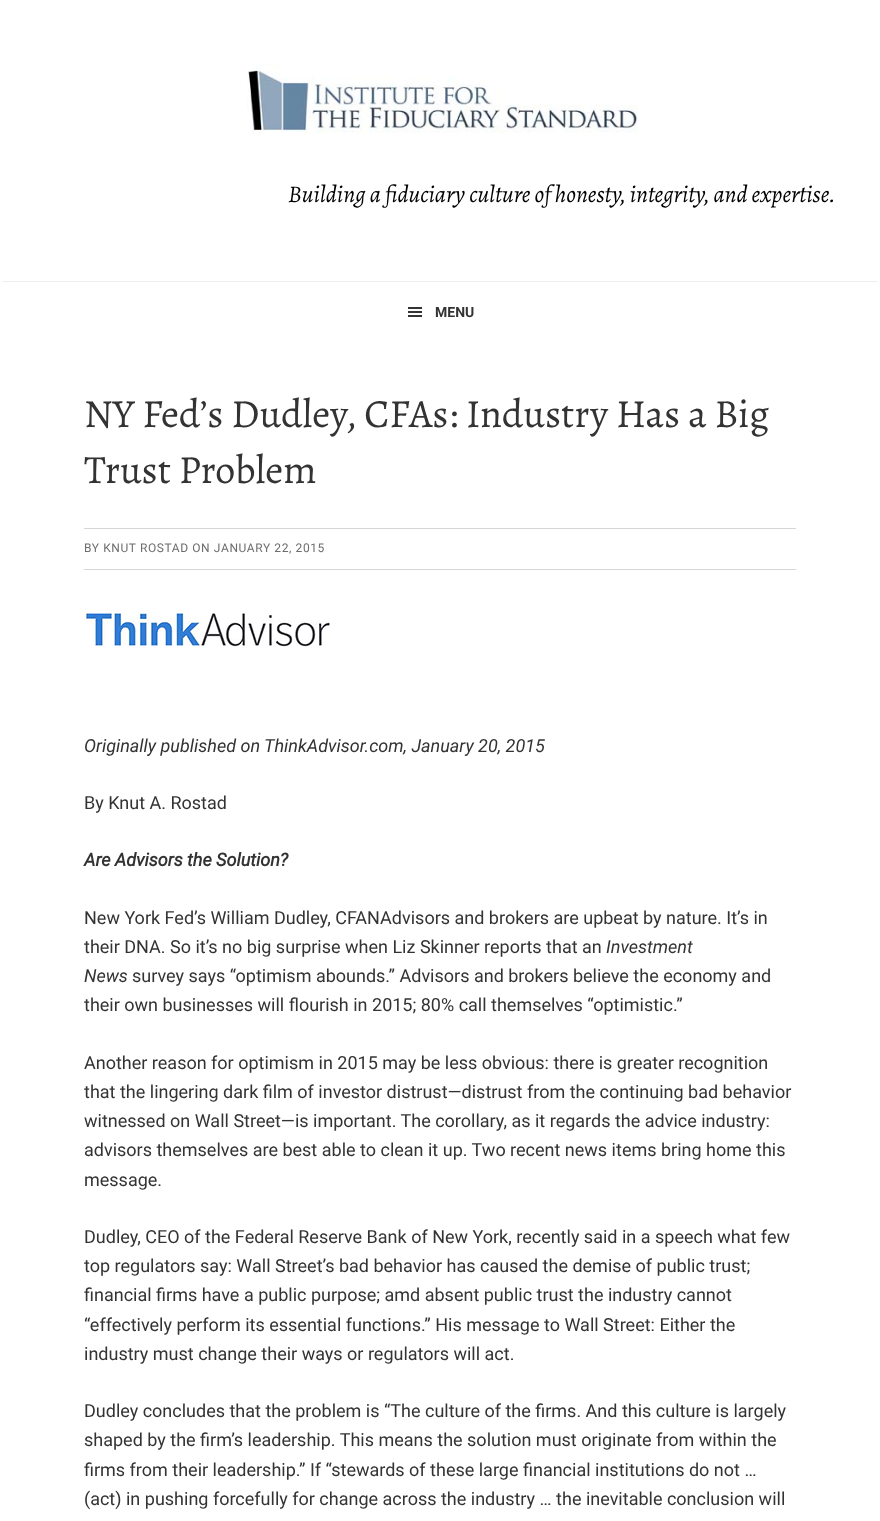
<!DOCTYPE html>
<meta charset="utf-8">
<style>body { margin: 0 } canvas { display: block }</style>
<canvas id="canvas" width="880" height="1521"></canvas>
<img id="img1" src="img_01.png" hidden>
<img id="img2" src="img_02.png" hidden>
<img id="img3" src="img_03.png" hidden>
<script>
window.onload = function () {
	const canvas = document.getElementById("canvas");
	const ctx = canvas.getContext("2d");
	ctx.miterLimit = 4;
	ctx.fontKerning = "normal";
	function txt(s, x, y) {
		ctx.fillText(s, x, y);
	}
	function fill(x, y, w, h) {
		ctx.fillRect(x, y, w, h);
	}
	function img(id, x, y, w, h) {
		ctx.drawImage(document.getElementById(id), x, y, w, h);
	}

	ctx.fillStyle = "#FFFFFF";
	fill(0, 0, 880, 1521);
	img("img1", 247, 64, 391, 69);
	ctx.fillStyle = "#EEEEEE";
	fill(2, 281, 876, 1);
	img("img2", 408, 307, 14, 10);
	ctx.fillStyle = "#D6D6D6";
	fill(84, 528, 712, 1);
	fill(84, 569, 712, 1);
	img("img3", 84, 610, 246, 38);
	ctx.font = "italic 24px Alegreya";
	ctx.fillStyle = "#000000";
	txt("Building a fiduciary culture of honesty, integrity, and expertise.", 288, 202);
	ctx.font = "bold 14px Roboto";
	ctx.fillStyle = "#333333";
	txt("MENU", 435, 317);
	ctx.font = "40px Alegreya";
	txt("NY Fed’s Dudley, CFAs: Industry Has a Big", 84, 427);
	txt("Trust Problem", 84, 483);
	ctx.letterSpacing = "0.6px";
	ctx.font = "12px Roboto";
	ctx.fillStyle = "#6D6D6D";
	txt("BY KNUT ROSTAD ON JANUARY 22, 2015", 84, 552);
	ctx.letterSpacing = "0px";
	ctx.font = "italic 18px Roboto";
	ctx.fillStyle = "#333333";
	txt("Originally published on ThinkAdvisor.com, January 20, 2015", 84, 752);
	ctx.font = "18px Roboto";
	txt("By Knut A. Rostad", 84, 809);
	ctx.font = "italic bold 18px Roboto";
	txt("Are Advisors the Solution?", 84, 866);
	ctx.font = "18px Roboto";
	txt("New York Fed’s William Dudley, CFANAdvisors and brokers are upbeat by nature. It’s in", 84, 924);
	txt("their DNA. So it’s no big surprise when Liz Skinner reports that an", 84, 953);
	ctx.font = "italic 18px Roboto";
	txt("Investment", 606, 953);
	txt("News", 84, 982);
	ctx.font = "18px Roboto";
	txt("survey says “optimism abounds.” Advisors and brokers believe the economy and", 132, 982);
	txt("their own businesses will flourish in 2015; 80% call themselves “optimistic.”", 84, 1011);
	txt("Another reason for optimism in 2015 may be less obvious: there is greater recognition", 84, 1069);
	txt("that the lingering dark film of investor distrust—distrust from the continuing bad behavior", 84, 1098);
	txt("witnessed on Wall Street—is important. The corollary, as it regards the advice industry:", 84, 1127);
	txt("advisors themselves are best able to clean it up. Two recent news items bring home this", 84, 1156);
	txt("message.", 84, 1186);
	txt("Dudley, CEO of the Federal Reserve Bank of New York, recently said in a speech what few", 84, 1243);
	txt("top regulators say: Wall Street’s bad behavior has caused the demise of public trust;", 84, 1272);
	txt("financial firms have a public purpose; amd absent public trust the industry cannot", 84, 1301);
	txt("“effectively perform its essential functions.” His message to Wall Street: Either the", 84, 1331);
	txt("industry must change their ways or regulators will act.", 84, 1360);
	txt("Dudley concludes that the problem is “The culture of the firms. And this culture is largely", 84, 1417);
	txt("shaped by the firm’s leadership. This means the solution must originate from within the", 84, 1446);
	txt("firms from their leadership.” If “stewards of these large financial institutions do not …", 84, 1476);
	txt("(act) in pushing forcefully for change across the industry … the inevitable conclusion will", 84, 1505);
};
</script>
